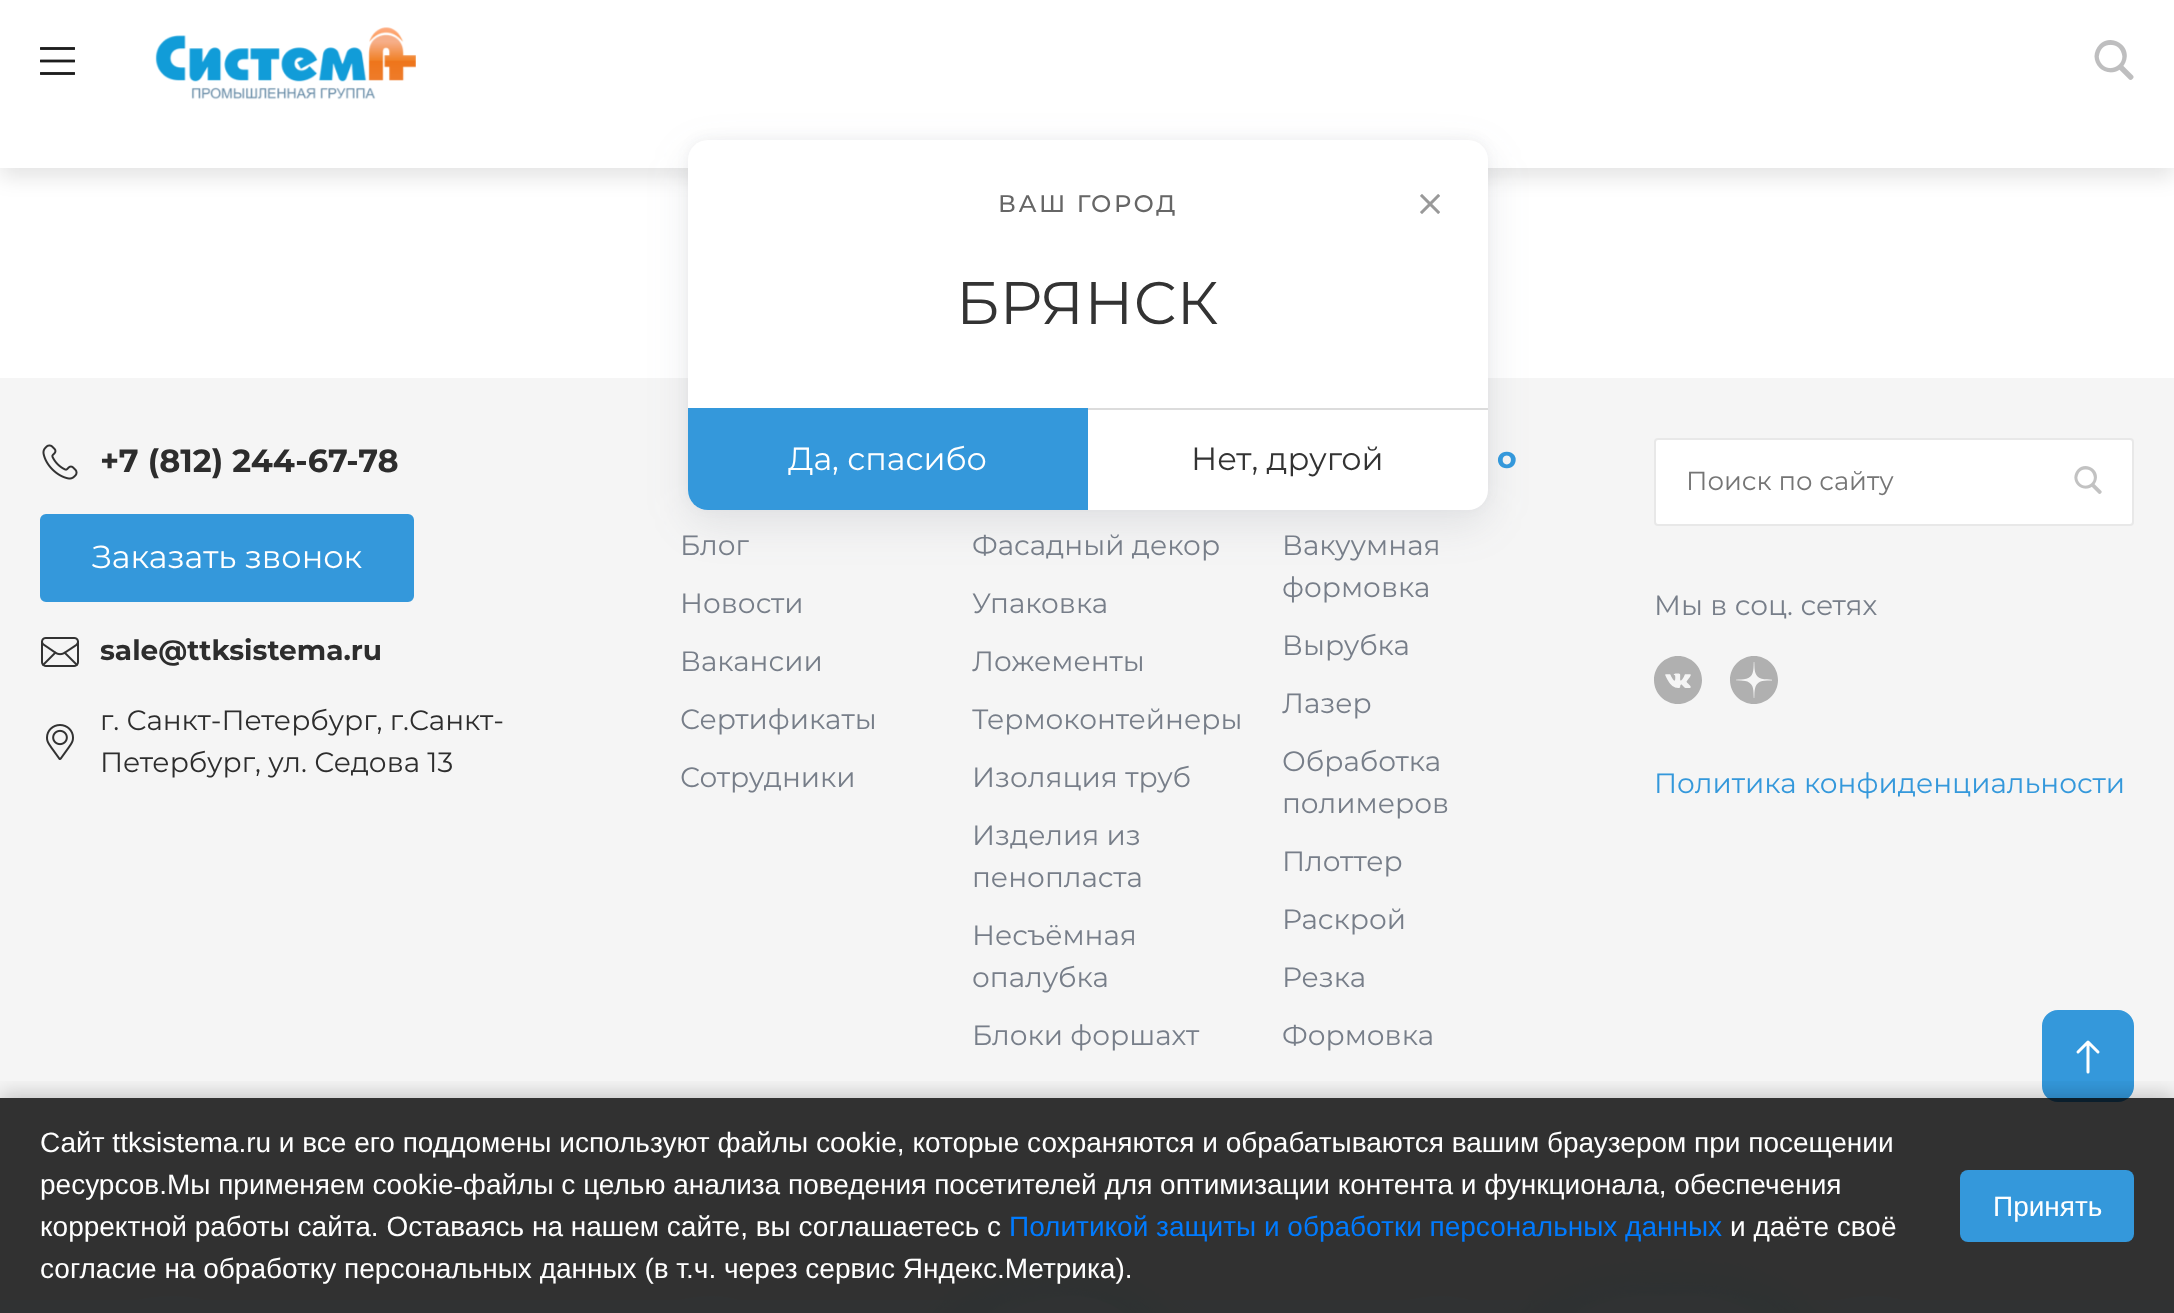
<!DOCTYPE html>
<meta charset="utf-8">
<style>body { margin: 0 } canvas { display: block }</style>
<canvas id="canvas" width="2174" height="1313"></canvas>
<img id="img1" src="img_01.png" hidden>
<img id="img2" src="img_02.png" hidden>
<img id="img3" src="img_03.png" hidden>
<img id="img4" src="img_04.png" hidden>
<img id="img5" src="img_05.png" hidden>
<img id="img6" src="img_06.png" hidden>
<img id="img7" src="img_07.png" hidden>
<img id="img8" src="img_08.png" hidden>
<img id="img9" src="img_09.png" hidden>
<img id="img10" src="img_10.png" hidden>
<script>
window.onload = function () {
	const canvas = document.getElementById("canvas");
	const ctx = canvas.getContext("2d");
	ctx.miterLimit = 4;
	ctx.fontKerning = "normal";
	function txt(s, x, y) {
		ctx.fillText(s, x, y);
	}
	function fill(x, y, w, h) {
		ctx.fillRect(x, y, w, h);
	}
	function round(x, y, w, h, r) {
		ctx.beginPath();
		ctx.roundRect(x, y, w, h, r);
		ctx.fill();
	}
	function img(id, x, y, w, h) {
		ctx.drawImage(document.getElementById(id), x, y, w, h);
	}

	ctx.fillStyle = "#FFFFFF";
	fill(0, 0, 2174, 1313);
	ctx.fillStyle = "rgba(0, 0, 0, 0.1)";
	ctx.filter = "blur(10px)";
	ctx.beginPath();
	ctx.rect(0, -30, 2174, 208);
	ctx.fill();
	ctx.filter = "none";
	ctx.fillStyle = "#FFFFFF";
	fill(0, 0, 2174, 168);
	ctx.fillStyle = "#F5F5F5";
	fill(0, 378, 2174, 922);
	ctx.fillStyle = "rgba(83, 92, 105, 0.06)";
	ctx.filter = "blur(6px)";
	ctx.beginPath();
	ctx.roundRect(688, 138, 800, 370, 20);
	ctx.fill();
	ctx.filter = "none";
	ctx.fillStyle = "rgba(83, 92, 105, 0.12)";
	ctx.filter = "blur(21px)";
	ctx.beginPath();
	ctx.roundRect(688, 154, 800, 370, 20);
	ctx.fill();
	ctx.filter = "none";
	ctx.fillStyle = "#FFFFFF";
	round(688, 140, 800, 370, 20);
	img("img1", 1420, 194, 20, 20);
	ctx.fillStyle = "#DCDCDC";
	fill(1088, 408, 400, 2);
	ctx.fillStyle = "#3498DB";
	ctx.beginPath();
	ctx.roundRect(688, 408, 400, 102, [0, 0, 0, 20]);
	ctx.fill();
	img("img2", 40, 47, 35, 28);
	img("img3", 155, 27, 261, 73);
	img("img4", 2094, 40, 40, 40);
	ctx.beginPath();
	ctx.roundRect(2044, 1012, 88, 88, 14);
	ctx.fill();
	ctx.strokeStyle = "#3498DB";
	ctx.lineWidth = 4;
	ctx.stroke();
	ctx.beginPath();
	ctx.moveTo(2098, 1052);
	ctx.lineTo(2088, 1042);
	ctx.lineTo(2078, 1052);
	ctx.moveTo(2088, 1072);
	ctx.lineTo(2088, 1042);
	ctx.strokeStyle = "#FFFFFF";
	ctx.lineWidth = 3;
	ctx.lineCap = "round";
	ctx.lineJoin = "round";
	ctx.stroke();
	img("img5", 42, 444, 36, 36);
	ctx.beginPath();
	ctx.roundRect(42, 516, 370, 84, 4);
	ctx.fill();
	ctx.strokeStyle = "#3498DB";
	ctx.lineWidth = 4;
	ctx.lineJoin = "miter";
	ctx.stroke();
	img("img6", 41, 637, 38, 30);
	img("img7", 46, 724, 28, 36);
	ctx.fillStyle = "#FFFFFF";
	ctx.beginPath();
	ctx.roundRect(1655, 439, 478, 86, 3);
	ctx.fill();
	ctx.strokeStyle = "#E8E8E8";
	ctx.lineWidth = 2;
	ctx.stroke();
	img("img8", 2074, 466, 28, 28);
	img("img9", 1654, 656, 48, 48);
	img("img10", 1730, 656, 48, 48);
	ctx.fillStyle = "#F1F9FC";
	fill(0, 1300, 2174, 13);
	ctx.beginPath();
	ctx.moveTo(174, 1296);
	ctx.bezierCurveTo(238, 1296, 290, 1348, 290, 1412);
	ctx.lineTo(290, 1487);
	ctx.lineTo(0, 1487);
	ctx.lineTo(0, 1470);
	ctx.bezierCurveTo(0, 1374, 78, 1296, 174, 1296);
	ctx.closePath();
	ctx.fill();
	ctx.beginPath();
	ctx.moveTo(712, 1296);
	ctx.bezierCurveTo(760.5, 1296, 800, 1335.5, 800, 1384);
	ctx.lineTo(800, 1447);
	ctx.lineTo(578, 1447);
	ctx.lineTo(578, 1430);
	ctx.bezierCurveTo(578, 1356, 638, 1296, 712, 1296);
	ctx.closePath();
	ctx.fill();
	ctx.fillStyle = "#C5F2ED";
	ctx.filter = "blur(20px)";
	ctx.beginPath();
	ctx.roundRect(960, 1296, 222, 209, 132);
	ctx.fill();
	ctx.filter = "none";
	ctx.fillStyle = "#C8EBF8";
	ctx.filter = "blur(20px)";
	ctx.beginPath();
	ctx.roundRect(920, 1296, 222, 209, 132);
	ctx.fill();
	ctx.filter = "none";
	ctx.fillStyle = "#FFFFFF";
	ctx.filter = "blur(20px)";
	ctx.beginPath();
	ctx.roundRect(940, 1296, 222, 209, 132);
	ctx.fill();
	ctx.filter = "none";
	ctx.fillStyle = "#F1F9FC";
	ctx.beginPath();
	ctx.moveTo(1072, 1296);
	ctx.bezierCurveTo(1121.5, 1296, 1162, 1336.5, 1162, 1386);
	ctx.lineTo(1162, 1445);
	ctx.lineTo(940, 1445);
	ctx.lineTo(940, 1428);
	ctx.bezierCurveTo(940, 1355, 999, 1296, 1072, 1296);
	ctx.closePath();
	ctx.fill();
	ctx.beginPath();
	ctx.moveTo(1442, 1296);
	ctx.bezierCurveTo(1493, 1296, 1534, 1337, 1534, 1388);
	ctx.lineTo(1534, 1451);
	ctx.lineTo(1304, 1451);
	ctx.lineTo(1304, 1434);
	ctx.bezierCurveTo(1304, 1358, 1366, 1296, 1442, 1296);
	ctx.closePath();
	ctx.fill();
	ctx.beginPath();
	ctx.moveTo(1874, 1296);
	ctx.bezierCurveTo(1929, 1296, 1974, 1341, 1974, 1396);
	ctx.lineTo(1974, 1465);
	ctx.lineTo(1722, 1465);
	ctx.lineTo(1722, 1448);
	ctx.bezierCurveTo(1722, 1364, 1790, 1296, 1874, 1296);
	ctx.closePath();
	ctx.fill();
	ctx.fillStyle = "#C5F2ED";
	ctx.filter = "blur(20px)";
	ctx.beginPath();
	ctx.roundRect(1554, 1296, 268, 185, 108);
	ctx.fill();
	ctx.filter = "none";
	ctx.fillStyle = "#C8EBF8";
	ctx.filter = "blur(20px)";
	ctx.beginPath();
	ctx.roundRect(1514, 1296, 268, 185, 108);
	ctx.fill();
	ctx.filter = "none";
	ctx.fillStyle = "#FFFFFF";
	ctx.filter = "blur(20px)";
	ctx.beginPath();
	ctx.roundRect(1534, 1296, 268, 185, 108);
	ctx.fill();
	ctx.filter = "none";
	ctx.fillStyle = "#F1F9FC";
	ctx.beginPath();
	ctx.moveTo(1642, 1296);
	ctx.lineTo(1694, 1296);
	ctx.bezierCurveTo(1753.5, 1296, 1802, 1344.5, 1802, 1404);
	ctx.lineTo(1802, 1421);
	ctx.lineTo(1534, 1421);
	ctx.lineTo(1534, 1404);
	ctx.bezierCurveTo(1534, 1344.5, 1582.5, 1296, 1642, 1296);
	ctx.closePath();
	ctx.fill();
	ctx.save();
	ctx.beginPath();
	ctx.rect(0, 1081, 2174, 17);
	ctx.clip();
	ctx.fillStyle = "rgba(0, 0, 0, 0.2)";
	ctx.filter = "blur(10px)";
	ctx.beginPath();
	ctx.rect(0, 1094, 2174, 216);
	ctx.fill();
	ctx.filter = "none";
	ctx.restore();
	ctx.fillStyle = "rgba(0, 0, 0, 0.8)";
	fill(0, 1098, 2174, 215);
	ctx.fillStyle = "#3498DB";
	round(1960, 1170, 174, 72, 8);
	ctx.letterSpacing = "2.5px";
	ctx.font = "500 24px Montserrat";
	ctx.fillStyle = "#666666";
	txt("ВАШ ГОРОД", 998, 212);
	ctx.letterSpacing = "0px";
	ctx.font = "60px Montserrat";
	ctx.fillStyle = "#333333";
	txt("БРЯНСК", 956, 324);
	ctx.font = "32px Montserrat";
	ctx.fillStyle = "#FFFFFF";
	txt("Да, спасибо", 788, 470);
	ctx.fillStyle = "#333333";
	txt("Нет, другой", 1191, 470);
	ctx.font = "bold 32px Montserrat";
	ctx.fillStyle = "#2D2D2D";
	txt("+7 (812) 244-67-78", 100, 472);
	ctx.font = "32px Montserrat";
	ctx.fillStyle = "#FFFFFF";
	txt("Заказать звонок", 92, 568);
	ctx.font = "bold 28px Montserrat";
	ctx.fillStyle = "#2D2D2D";
	txt("sale@ttksistema.ru", 100, 660);
	ctx.font = "28px Montserrat";
	txt("г. Санкт-Петербург, г.Санкт-", 100, 730);
	txt("Петербург, ул. Седова 13", 100, 772);
	ctx.fillStyle = "#777E89";
	txt("Блог", 680, 555);
	txt("Новости", 680, 613);
	txt("Вакансии", 680, 671);
	txt("Сертификаты", 680, 729);
	txt("Сотрудники", 680, 787);
	txt("Фасадный декор", 972, 555);
	txt("Упаковка", 972, 613);
	txt("Ложементы", 972, 671);
	txt("Термоконтейнеры", 972, 729);
	txt("Изоляция труб", 972, 787);
	txt("Изделия из", 972, 845);
	txt("пенопласта", 972, 887);
	txt("Несъёмная", 972, 945);
	txt("опалубка", 972, 987);
	txt("Блоки форшахт", 972, 1045);
	ctx.font = "bold 30px Montserrat";
	ctx.fillStyle = "#3498DB";
	txt("о", 1497, 468);
	ctx.font = "28px Montserrat";
	ctx.fillStyle = "#777E89";
	txt("Вакуумная", 1282, 555);
	txt("формовка", 1282, 597);
	txt("Вырубка", 1282, 655);
	txt("Лазер", 1282, 713);
	txt("Обработка", 1282, 771);
	txt("полимеров", 1282, 813);
	txt("Плоттер", 1282, 871);
	txt("Раскрой", 1282, 929);
	txt("Резка", 1282, 987);
	txt("Формовка", 1282, 1045);
	ctx.font = "26px Montserrat";
	ctx.fillStyle = "#757575";
	txt("Поиск по сайту", 1686, 490);
	ctx.font = "28px Montserrat";
	ctx.fillStyle = "#777E89";
	txt("Мы в соц. сетях", 1654, 615);
	ctx.fillStyle = "#3498DB";
	txt("Политика конфиденциальности", 1654, 793);
	ctx.font = "28px Liberation Sans";
	ctx.fillStyle = "#FFFFFF";
	txt("Сайт ttksistema.ru и все его поддомены используют файлы cookie, которые сохраняются и обрабатываются вашим браузером при посещении", 40, 1152);
	txt("ресурсов.Мы применяем cookie‑файлы с целью анализа поведения посетителей для оптимизации контента и функционала, обеспечения", 40, 1194);
	txt("корректной работы сайта. Оставаясь на нашем сайте, вы соглашаетесь с", 40, 1236);
	ctx.fillStyle = "#007BFF";
	txt("Политикой защиты и обработки персональных данных", 1009, 1236);
	ctx.fillStyle = "#FFFFFF";
	txt("и даёте своё", 1730, 1236);
	txt("согласие на обработку персональных данных (в т.ч. через сервис Яндекс.Метрика).", 40, 1278);
	txt("Принять", 1993, 1216);
};
</script>
